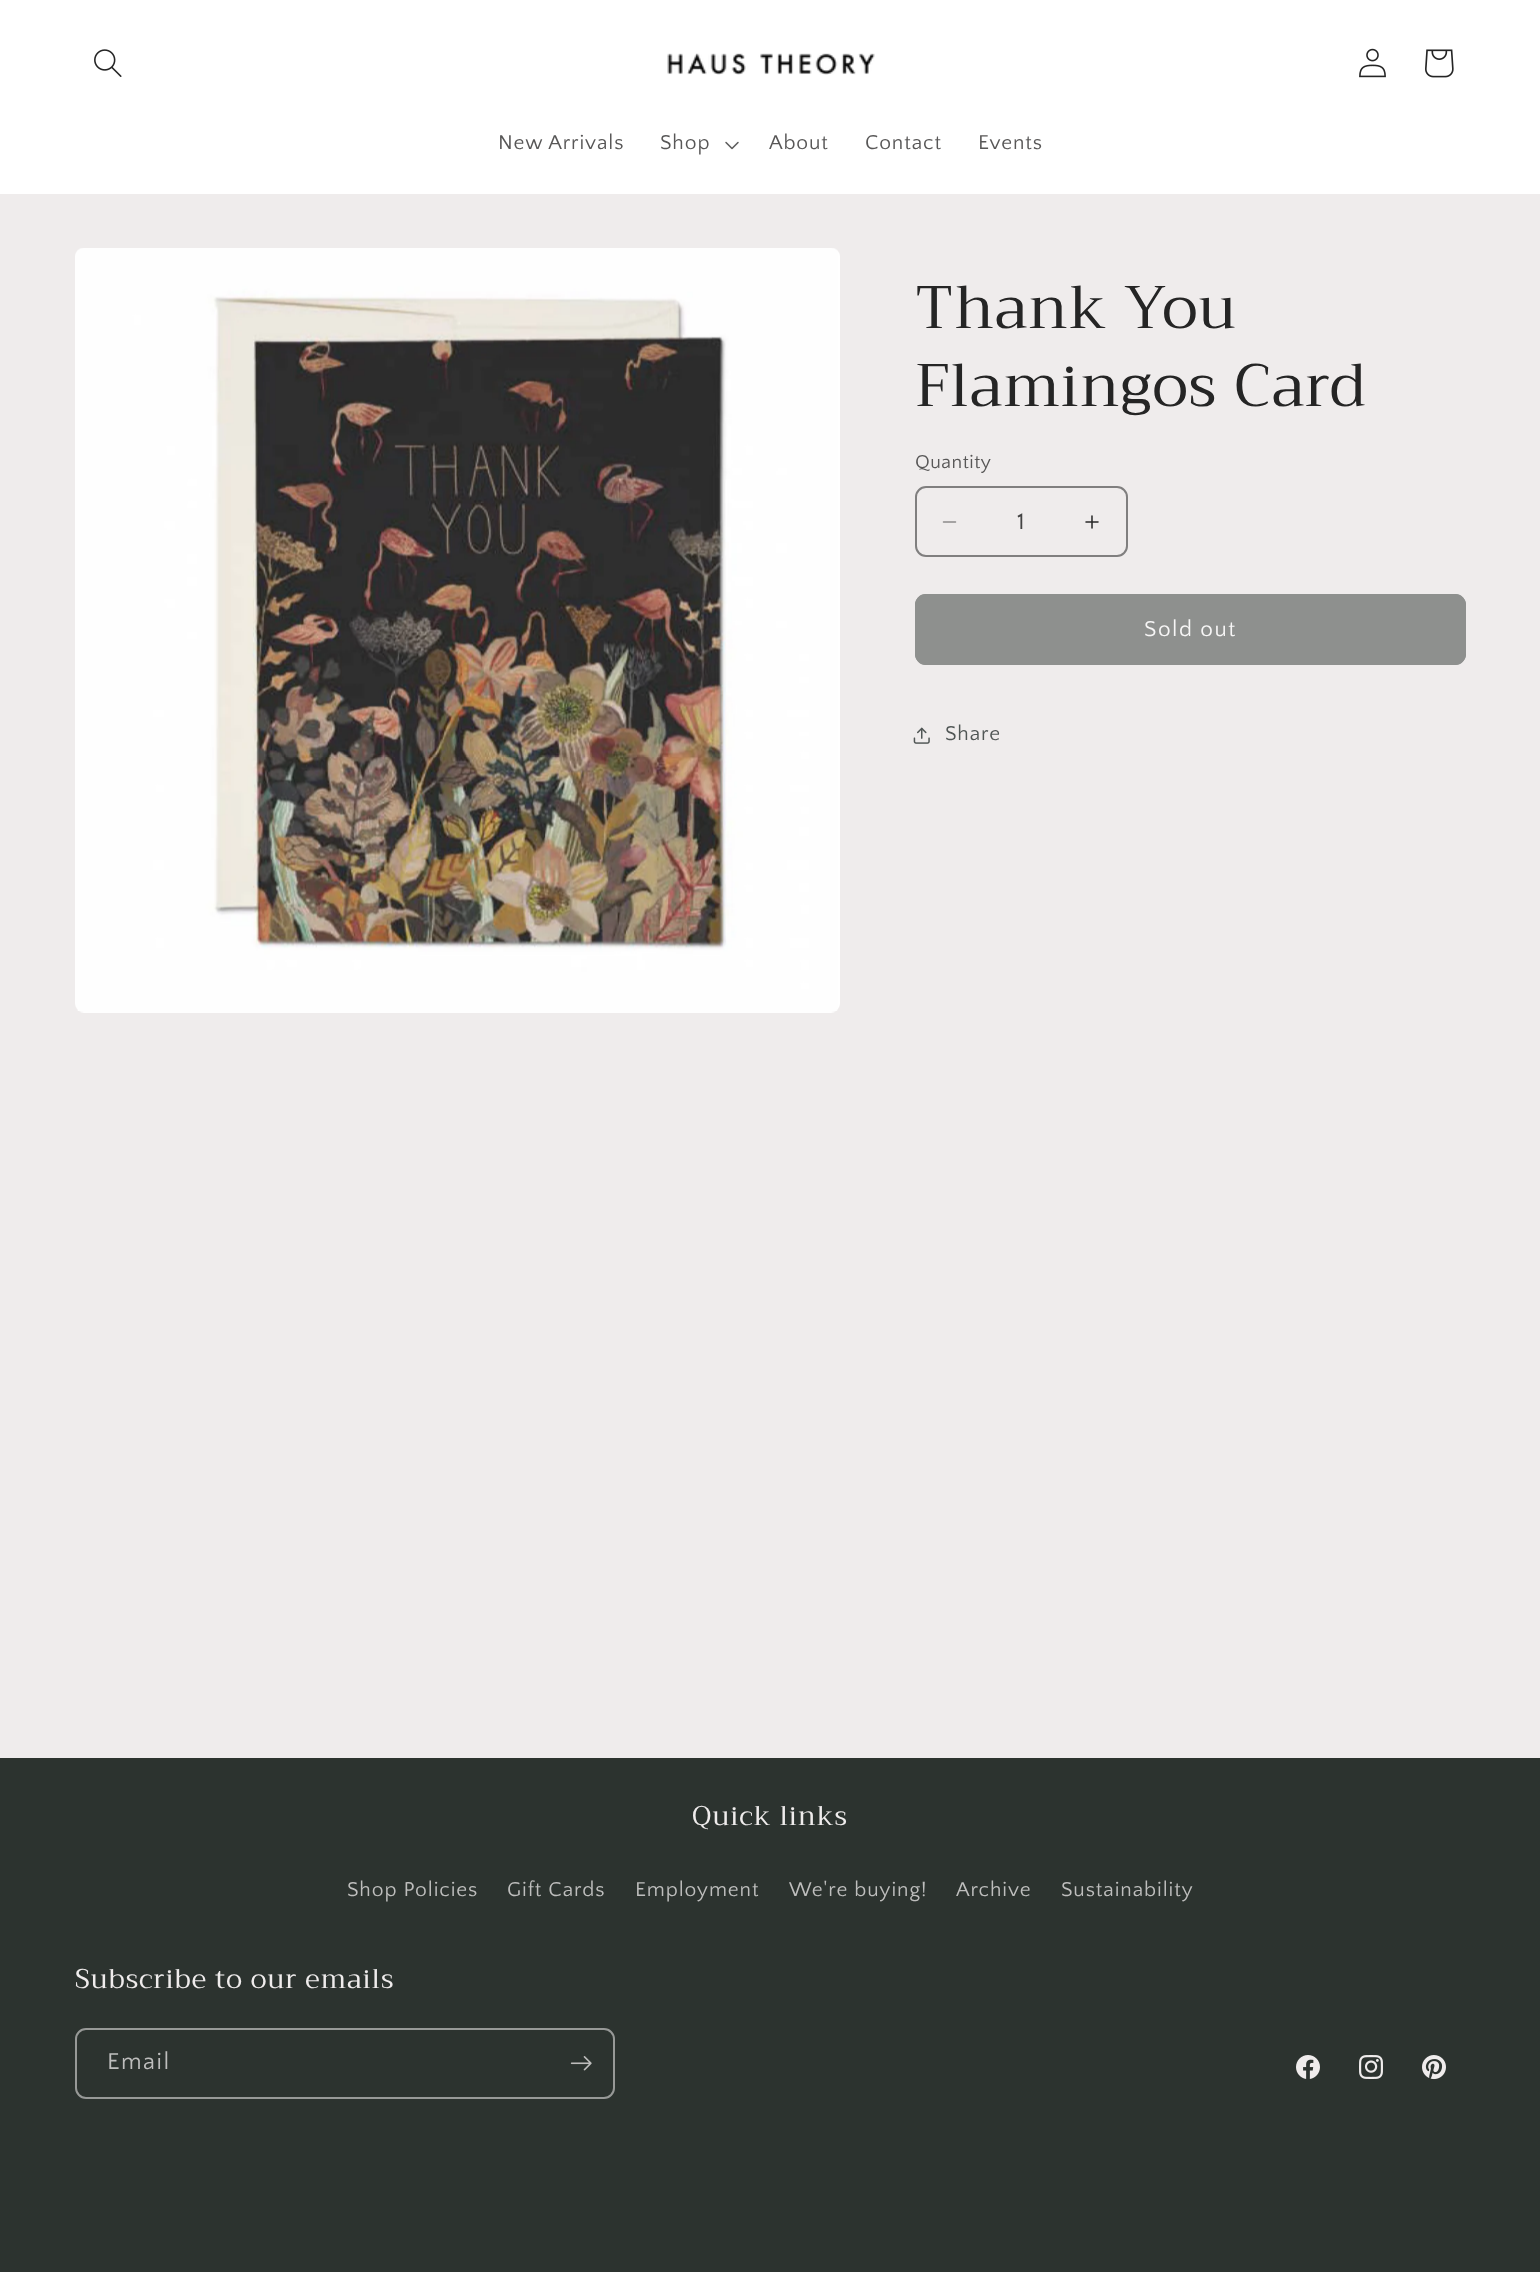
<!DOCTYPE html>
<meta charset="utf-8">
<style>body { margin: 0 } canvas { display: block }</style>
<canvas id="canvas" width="1540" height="2272"></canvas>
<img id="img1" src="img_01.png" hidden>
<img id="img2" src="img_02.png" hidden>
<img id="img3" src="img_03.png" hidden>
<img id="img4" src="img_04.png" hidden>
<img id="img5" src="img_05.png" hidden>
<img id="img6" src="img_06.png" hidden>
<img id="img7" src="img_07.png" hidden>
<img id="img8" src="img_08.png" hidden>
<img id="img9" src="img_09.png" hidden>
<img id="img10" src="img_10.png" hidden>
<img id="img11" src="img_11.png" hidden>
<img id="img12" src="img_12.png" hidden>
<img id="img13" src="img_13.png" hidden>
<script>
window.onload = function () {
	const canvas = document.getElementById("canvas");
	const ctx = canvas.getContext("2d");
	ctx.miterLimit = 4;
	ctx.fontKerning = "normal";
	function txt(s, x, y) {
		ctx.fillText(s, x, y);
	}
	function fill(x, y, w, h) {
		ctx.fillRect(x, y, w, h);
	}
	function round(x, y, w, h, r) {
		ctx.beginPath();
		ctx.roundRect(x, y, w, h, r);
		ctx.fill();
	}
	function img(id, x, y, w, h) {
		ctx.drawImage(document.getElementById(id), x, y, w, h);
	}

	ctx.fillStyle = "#EFECEC";
	fill(0, 0, 1540, 2272);
	ctx.fillStyle = "#FFFFFF";
	fill(0, 0, 1540, 194);
	img("img1", 94, 49, 28, 28);
	img("img2", 667, 53, 208, 22);
	img("img3", 1359, 48, 27, 30);
	img("img4", 1425, 49, 29, 29);
	img("img5", 725, 141, 14, 9);
	img("img6", 75, 248, 765, 765);
	img("img7", 942, 521, 15, 2);
	img("img8", 1085, 515, 14, 14);
	ctx.beginPath();
	ctx.roundRect(916, 487, 211, 69, 10);
	ctx.strokeStyle = "#807F7F";
	ctx.lineWidth = 2;
	ctx.stroke();
	ctx.fillStyle = "#8E908E";
	round(915, 594, 551, 71, 11);
	ctx.beginPath();
	ctx.roundRect(916, 595, 549, 69, 10);
	ctx.strokeStyle = "#8E908E";
	ctx.stroke();
	img("img9", 913, 727, 17, 17);
	ctx.fillStyle = "#2C332F";
	fill(0, 1758, 1540, 514);
	ctx.beginPath();
	ctx.roundRect(76, 2029, 538, 69, 10);
	ctx.strokeStyle = "#979997";
	ctx.stroke();
	img("img10", 570, 2056, 22, 15);
	img("img11", 1296, 2055, 24, 24);
	img("img12", 1359, 2055, 24, 24);
	img("img13", 1422, 2055, 24, 25);
	ctx.letterSpacing = "0.9px";
	ctx.font = "21px Quattrocento Sans";
	ctx.fillStyle = "#585757";
	txt("New Arrivals", 498, 149);
	txt("Shop", 660, 149);
	txt("About", 769, 149);
	txt("Contact", 865, 149);
	txt("Events", 978, 149);
	ctx.font = "60px Trirong";
	ctx.fillStyle = "#252525";
	txt("Thank You", 915, 328);
	txt("Flamingos Card", 915, 406);
	ctx.letterSpacing = "0.5px";
	ctx.font = "19.5px Quattrocento Sans";
	ctx.fillStyle = "#585757";
	txt("Quantity", 915, 468);
	ctx.letterSpacing = "0px";
	ctx.font = "24px Quattrocento Sans";
	ctx.fillStyle = "#434343";
	txt("1", 1017, 529);
	ctx.letterSpacing = "1.5px";
	ctx.font = "22.5px Quattrocento Sans";
	ctx.fillStyle = "#F7F6F6";
	txt("Sold out", 1144, 636);
	ctx.letterSpacing = "0.9px";
	ctx.font = "21px Quattrocento Sans";
	ctx.fillStyle = "#505655";
	txt("Share", 945, 740);
	ctx.font = "27px Trirong";
	ctx.fillStyle = "#EFECEC";
	txt("Quick links", 692, 1825);
	ctx.font = "21px Quattrocento Sans";
	ctx.fillStyle = "#BEBEBD";
	txt("Shop Policies", 347, 1896);
	txt("Gift Cards", 507, 1896);
	txt("Employment", 635, 1896);
	txt("We're buying!", 789, 1896);
	txt("Archive", 956, 1896);
	txt("Sustainability", 1061, 1896);
	ctx.font = "27px Trirong";
	ctx.fillStyle = "#EFECEC";
	txt("Subscribe to our emails", 75, 1988);
	ctx.letterSpacing = "1.5px";
	ctx.font = "24px Quattrocento Sans";
	ctx.fillStyle = "#BEBEBD";
	txt("Email", 107, 2069);
};
</script>
